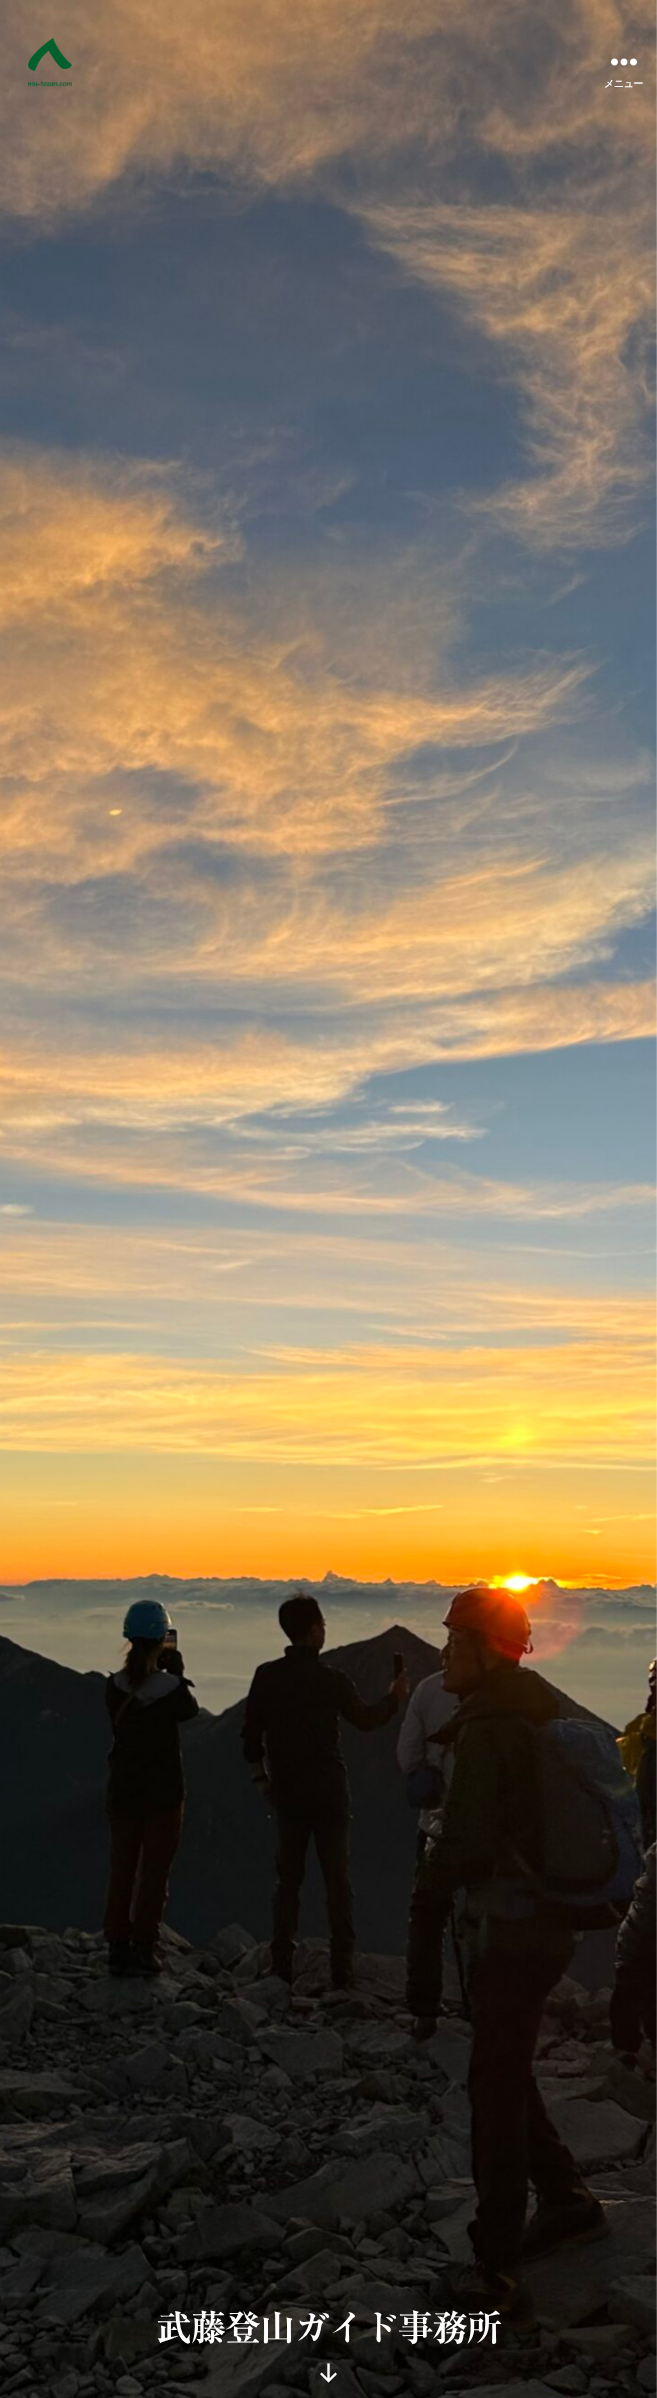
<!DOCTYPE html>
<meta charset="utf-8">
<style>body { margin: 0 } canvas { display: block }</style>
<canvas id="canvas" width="657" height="2398"></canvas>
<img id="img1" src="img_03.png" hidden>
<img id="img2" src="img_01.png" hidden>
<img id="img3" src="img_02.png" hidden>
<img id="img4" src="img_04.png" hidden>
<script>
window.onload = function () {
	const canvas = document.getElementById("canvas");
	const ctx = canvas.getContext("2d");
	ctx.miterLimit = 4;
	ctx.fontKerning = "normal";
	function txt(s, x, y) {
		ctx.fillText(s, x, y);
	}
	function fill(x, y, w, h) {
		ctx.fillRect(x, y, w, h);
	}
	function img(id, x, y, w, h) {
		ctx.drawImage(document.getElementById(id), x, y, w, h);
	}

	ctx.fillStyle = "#FFFFFF";
	fill(0, 0, 657, 2398);
	img("img1", 0, 0, 657, 2398);
	img("img2", 28, 37, 44, 50);
	img("img3", 611, 58, 26, 8);
	img("img4", 320, 2363, 17, 20);
	ctx.letterSpacing = "-0.5px";
	ctx.font = "bold 10px WenQuanYi Zen Hei";
	txt("メニュー", 604, 87);
	ctx.letterSpacing = "-1.5px";
	ctx.font = "500 36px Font";
	txt("武藤登山ガイド事務所", 156, 2341);
};
</script>
